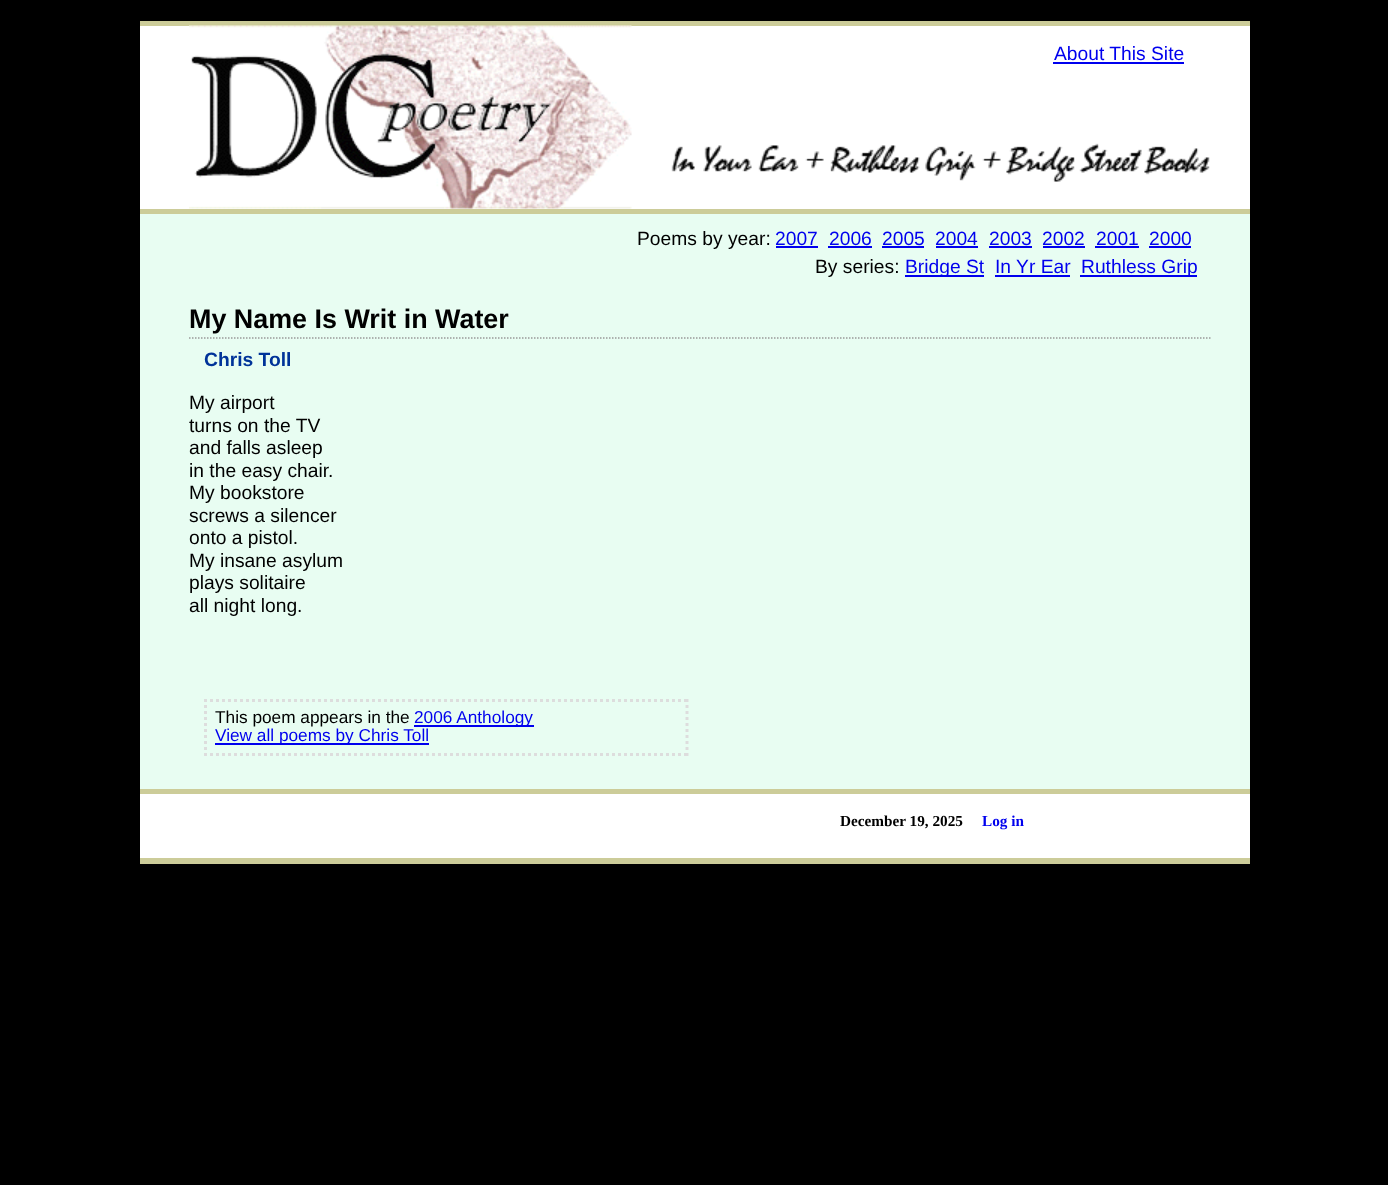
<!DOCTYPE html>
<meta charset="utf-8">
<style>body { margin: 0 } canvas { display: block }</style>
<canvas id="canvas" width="1388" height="1185"></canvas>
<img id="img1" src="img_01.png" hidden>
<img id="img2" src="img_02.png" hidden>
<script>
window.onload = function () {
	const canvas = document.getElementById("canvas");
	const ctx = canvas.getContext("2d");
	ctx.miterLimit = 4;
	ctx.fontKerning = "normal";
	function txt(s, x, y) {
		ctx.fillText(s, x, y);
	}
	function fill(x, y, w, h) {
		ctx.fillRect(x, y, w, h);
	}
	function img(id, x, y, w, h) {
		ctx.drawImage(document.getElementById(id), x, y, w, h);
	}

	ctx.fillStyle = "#000000";
	fill(0, 0, 1388, 1185);
	ctx.fillStyle = "#E8FDF2";
	fill(140, 214, 1110, 575);
	ctx.fillStyle = "#FFFFFF";
	fill(140, 26, 1110, 183);
	ctx.fillStyle = "#CCCC99";
	fill(140, 21, 1110, 5);
	fill(140, 209, 1110, 5);
	img("img1", 189, 25, 443, 184);
	ctx.fillStyle = "#0000EE";
	fill(1053, 62, 131, 2);
	img("img2", 671, 143, 539, 39);
	fill(776, 246, 42, 2);
	fill(828, 246, 44, 2);
	fill(882, 246, 42, 2);
	fill(936, 246, 42, 2);
	fill(989, 246, 43, 2);
	fill(1043, 246, 42, 2);
	fill(1095, 246, 44, 2);
	fill(1149, 246, 42, 2);
	fill(905, 275, 79, 2);
	fill(995, 275, 75, 2);
	fill(1080, 275, 117, 2);
	ctx.beginPath();
	ctx.moveTo(189, 338);
	ctx.lineTo(1212, 338);
	ctx.strokeStyle = "#999999";
	ctx.lineWidth = 1.5;
	ctx.setLineDash([1.5, 1.5]);
	ctx.stroke();
	ctx.beginPath();
	ctx.moveTo(204, 700.5);
	ctx.lineTo(688.5, 700.5);
	ctx.strokeStyle = "#DDDDDD";
	ctx.lineWidth = 3;
	ctx.setLineDash([3, 3]);
	ctx.stroke();
	ctx.beginPath();
	ctx.moveTo(687, 699);
	ctx.lineTo(687, 756);
	ctx.stroke();
	ctx.beginPath();
	ctx.moveTo(204, 754.5);
	ctx.lineTo(688.5, 754.5);
	ctx.stroke();
	ctx.beginPath();
	ctx.moveTo(205.5, 699);
	ctx.lineTo(205.5, 756);
	ctx.stroke();
	fill(414, 725, 120, 2);
	fill(215, 743, 214, 2);
	ctx.fillStyle = "#FFFFFF";
	fill(140, 794, 1110, 64);
	ctx.fillStyle = "#CCCC99";
	fill(140, 789, 1110, 5);
	fill(140, 858, 1110, 6);
	ctx.font = "19.25px Liberation Sans";
	ctx.fillStyle = "#0000EE";
	txt("About This Site", 1054, 60);
	ctx.fillStyle = "#000000";
	txt("Poems by year:", 637, 245);
	ctx.fillStyle = "#0000EE";
	txt("2007", 775, 245);
	txt("2006", 829, 245);
	txt("2005", 882, 245);
	txt("2004", 935, 245);
	txt("2003", 989, 245);
	txt("2002", 1042, 245);
	txt("2001", 1096, 245);
	txt("2000", 1149, 245);
	ctx.fillStyle = "#000000";
	txt("By series:", 815, 273);
	ctx.fillStyle = "#0000EE";
	txt("Bridge St", 905, 273);
	txt("In Yr Ear", 995, 273);
	txt("Ruthless Grip", 1081, 273);
	ctx.font = "bold 26.9px Liberation Sans";
	ctx.fillStyle = "#000000";
	txt("My Name Is Writ in Water", 189, 328);
	ctx.font = "bold 19.25px Liberation Sans";
	ctx.fillStyle = "#003399";
	txt("Chris Toll", 204, 366);
	ctx.font = "19.25px Liberation Sans";
	ctx.fillStyle = "#000000";
	txt("My airport", 189, 409);
	txt("turns on the TV", 189, 432);
	txt("and falls asleep", 189, 454);
	txt("in the easy chair.", 189, 477);
	txt("My bookstore", 189, 499);
	txt("screws a silencer", 189, 522);
	txt("onto a pistol.", 189, 544);
	txt("My insane asylum", 189, 567);
	txt("plays solitaire", 189, 589);
	txt("all night long.", 189, 612);
	ctx.font = "17.25px Liberation Sans";
	txt("This poem appears in the", 215, 723);
	ctx.fillStyle = "#0000EE";
	txt("2006 Anthology", 414, 723);
	txt("View all poems by Chris Toll", 215, 741);
	ctx.font = "bold 15.25px Liberation Serif";
	ctx.fillStyle = "#000000";
	txt("December 19, 2025", 840, 826);
	ctx.fillStyle = "#0000EE";
	txt("Log in", 982, 826);
};
</script>
